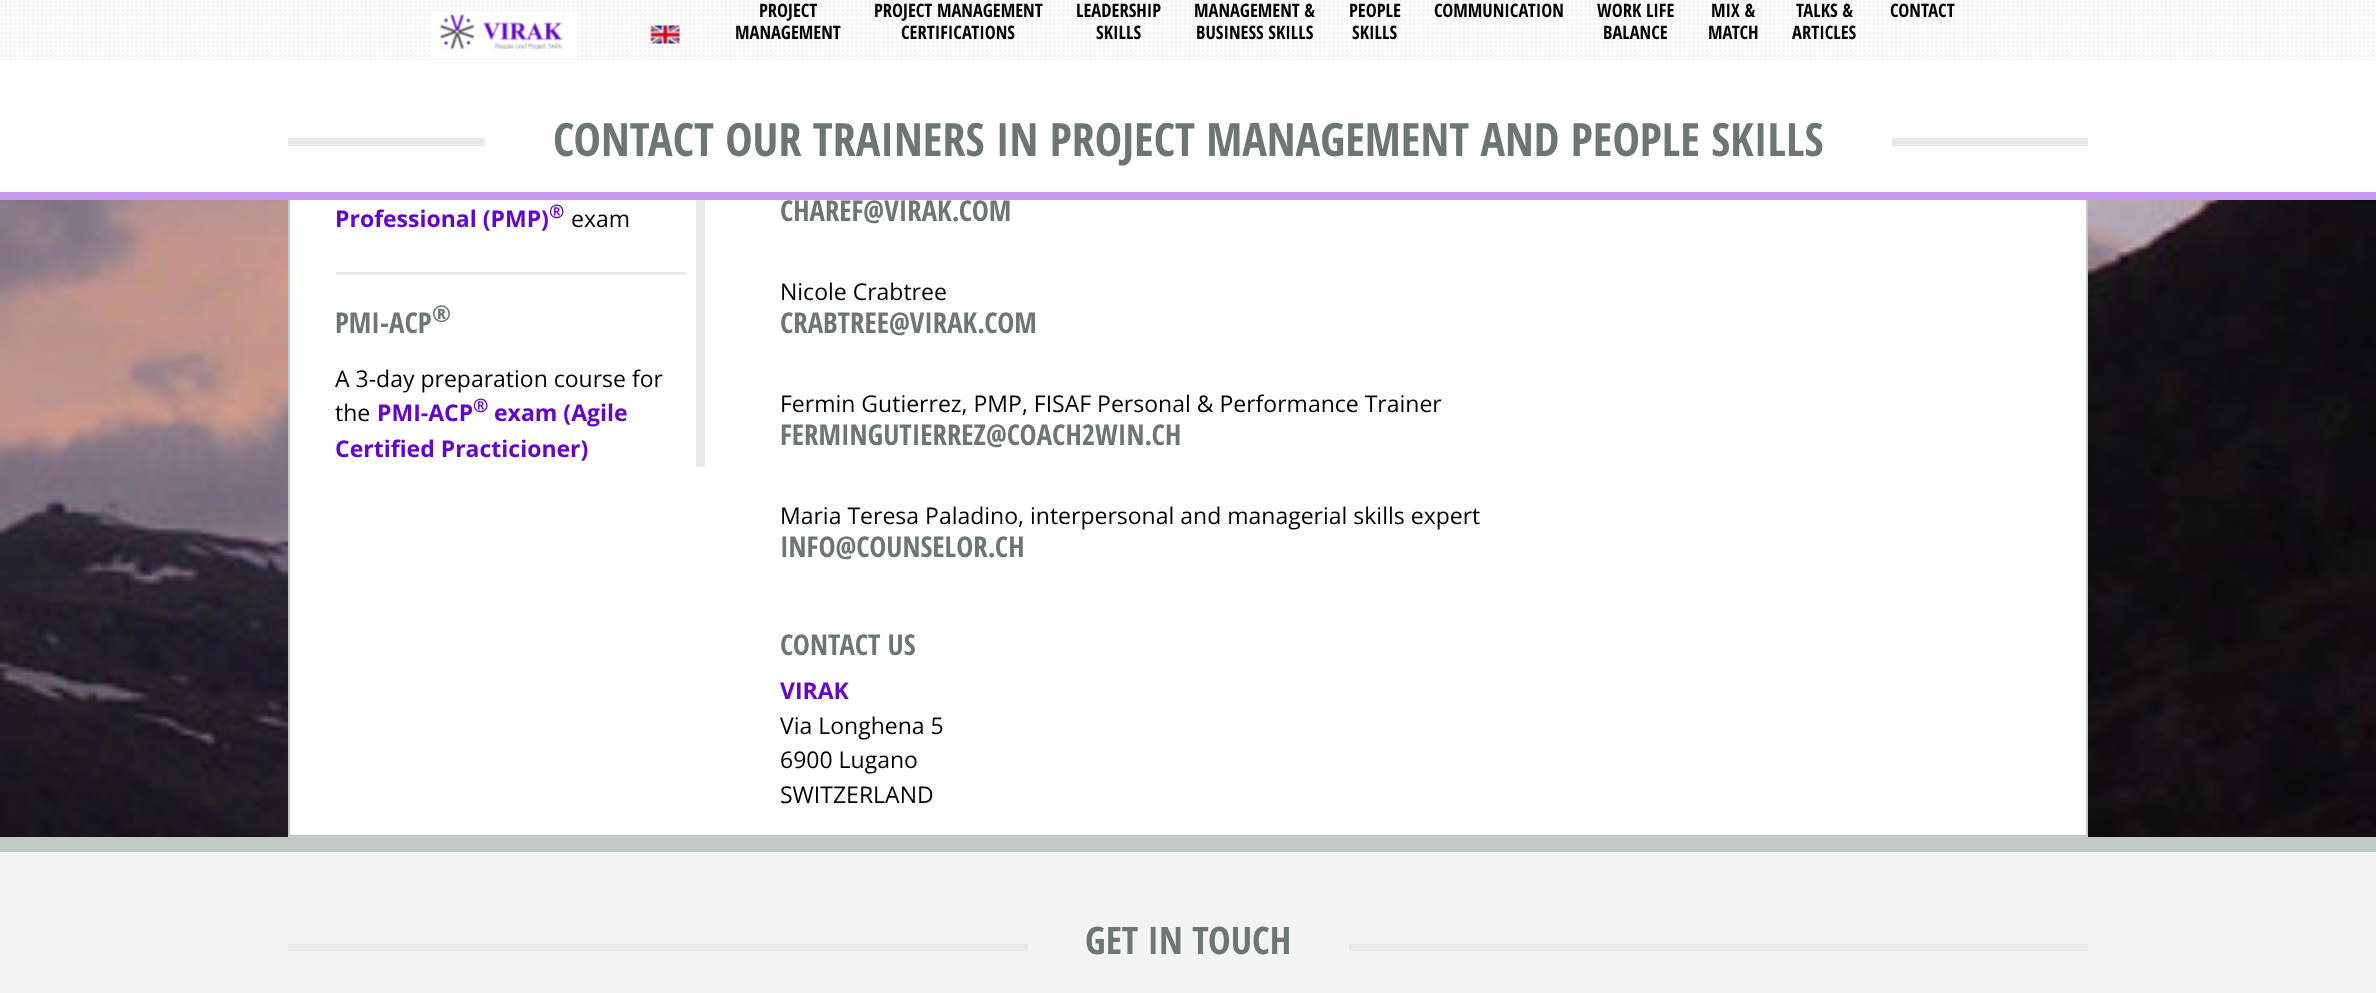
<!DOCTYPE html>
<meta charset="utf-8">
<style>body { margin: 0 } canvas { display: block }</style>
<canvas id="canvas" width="2376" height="993"></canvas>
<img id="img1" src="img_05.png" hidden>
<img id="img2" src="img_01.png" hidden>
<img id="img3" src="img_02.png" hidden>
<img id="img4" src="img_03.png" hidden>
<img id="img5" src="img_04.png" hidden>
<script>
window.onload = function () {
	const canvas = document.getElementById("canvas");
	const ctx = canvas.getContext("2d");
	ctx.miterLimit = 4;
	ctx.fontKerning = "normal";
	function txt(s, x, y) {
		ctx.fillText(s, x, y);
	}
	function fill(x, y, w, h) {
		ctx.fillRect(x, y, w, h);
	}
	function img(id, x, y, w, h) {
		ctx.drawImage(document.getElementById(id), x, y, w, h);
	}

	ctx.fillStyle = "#F2F5F3";
	fill(0, 0, 2376, 993);
	img("img1", 0, 200, 2376, 637);
	ctx.fillStyle = "#FFFFFF";
	fill(290, 200, 1796, 635);
	ctx.strokeStyle = "#C1CAC5";
	ctx.lineWidth = 2;
	ctx.strokeRect(289, -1, 1798, 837);
	fill(0, 0, 2376, 192);
	img("img2", 0, 0, 2375, 60);
	ctx.fillStyle = "rgba(255, 255, 255, 0.95)";
	fill(0, 0, 2375, 60);
	img("img3", 0, 0, 2375, 60);
	img("img4", 432, 13, 146, 44);
	img("img5", 650, 25, 30, 19);
	ctx.fillStyle = "#C798EF";
	fill(0, 192, 2376, 8);
	ctx.fillStyle = "#E7EAE8";
	fill(288, 138, 1800, 8);
	ctx.fillStyle = "#FFFFFF";
	fill(485, 138, 1407, 8);
	ctx.fillStyle = "#C1CAC5";
	fill(0, 837, 2376, 15);
	ctx.fillStyle = "#E7EAE8";
	fill(696, 200, 9, 267);
	fill(336, 272, 350, 3);
	fill(288, 944, 1800, 7);
	ctx.fillStyle = "#F2F5F3";
	fill(1028, 944, 321, 7);
	ctx.font = "bold 18.5px Open Sans Condensed";
	ctx.fillStyle = "#000000";
	txt("PROJECT", 759, 17);
	txt("MANAGEMENT", 735, 39);
	txt("PROJECT MANAGEMENT", 874, 17);
	txt("CERTIFICATIONS", 901, 39);
	txt("LEADERSHIP", 1076, 17);
	txt("SKILLS", 1096, 39);
	txt("MANAGEMENT &", 1194, 17);
	txt("BUSINESS SKILLS", 1196, 39);
	txt("PEOPLE", 1349, 17);
	txt("SKILLS", 1352, 39);
	txt("COMMUNICATION", 1434, 17);
	txt("WORK LIFE", 1597, 17);
	txt("BALANCE", 1603, 39);
	txt("MIX &", 1711, 17);
	txt("MATCH", 1708, 39);
	txt("TALKS &", 1796, 17);
	txt("ARTICLES", 1792, 39);
	txt("CONTACT", 1890, 17);
	ctx.font = "bold 46px Open Sans Condensed";
	ctx.fillStyle = "#6B7770";
	txt("CONTACT OUR TRAINERS IN PROJECT MANAGEMENT AND PEOPLE SKILLS", 553, 156);
	ctx.font = "bold 23px Open Sans";
	ctx.fillStyle = "#6504CE";
	txt("Professional (PMP)", 335, 227);
	ctx.font = "bold 18.5px Open Sans";
	txt("®", 549, 218);
	ctx.font = "23px Open Sans";
	ctx.fillStyle = "#000000";
	txt("exam", 571, 227);
	ctx.font = "bold 28.75px Open Sans Condensed";
	ctx.fillStyle = "#6B7770";
	txt("PMI-ACP", 335, 333);
	ctx.font = "bold 23px Open Sans Condensed";
	txt("®", 432, 322);
	ctx.font = "23px Open Sans";
	ctx.fillStyle = "#000000";
	txt("A 3-day preparation course for", 335, 387);
	txt("the", 335, 421);
	ctx.font = "bold 23px Open Sans";
	ctx.fillStyle = "#6504CE";
	txt("PMI-ACP", 377, 421);
	ctx.font = "bold 18.5px Open Sans";
	txt("®", 473, 412);
	ctx.font = "bold 23px Open Sans";
	txt("exam (Agile", 494, 421);
	txt("Certified Practicioner)", 335, 457);
	ctx.font = "bold 28.75px Open Sans Condensed";
	ctx.fillStyle = "#6B7770";
	txt("CHAREF@VIRAK.COM", 780, 221);
	ctx.font = "23px Open Sans";
	ctx.fillStyle = "#000000";
	txt("Nicole Crabtree", 780, 300);
	ctx.font = "bold 28.75px Open Sans Condensed";
	ctx.fillStyle = "#6B7770";
	txt("CRABTREE@VIRAK.COM", 780, 333);
	ctx.font = "23px Open Sans";
	ctx.fillStyle = "#000000";
	txt("Fermin Gutierrez, PMP, FISAF Personal & Performance Trainer", 780, 412);
	ctx.font = "bold 28.75px Open Sans Condensed";
	ctx.fillStyle = "#6B7770";
	txt("FERMINGUTIERREZ@COACH2WIN.CH", 780, 445);
	ctx.font = "23px Open Sans";
	ctx.fillStyle = "#000000";
	txt("Maria Teresa Paladino, interpersonal and managerial skills expert", 780, 524);
	ctx.font = "bold 28.75px Open Sans Condensed";
	ctx.fillStyle = "#6B7770";
	txt("INFO@COUNSELOR.CH", 780, 557);
	txt("CONTACT US", 780, 655);
	ctx.font = "bold 23px Open Sans";
	ctx.fillStyle = "#6504CE";
	txt("VIRAK", 780, 699);
	ctx.font = "23px Open Sans";
	ctx.fillStyle = "#000000";
	txt("Via Longhena 5", 780, 734);
	txt("6900 Lugano", 780, 768);
	txt("SWITZERLAND", 780, 803);
	ctx.font = "bold 38px Open Sans Condensed";
	ctx.fillStyle = "#6B7770";
	txt("GET IN TOUCH", 1085, 954);
};
</script>
